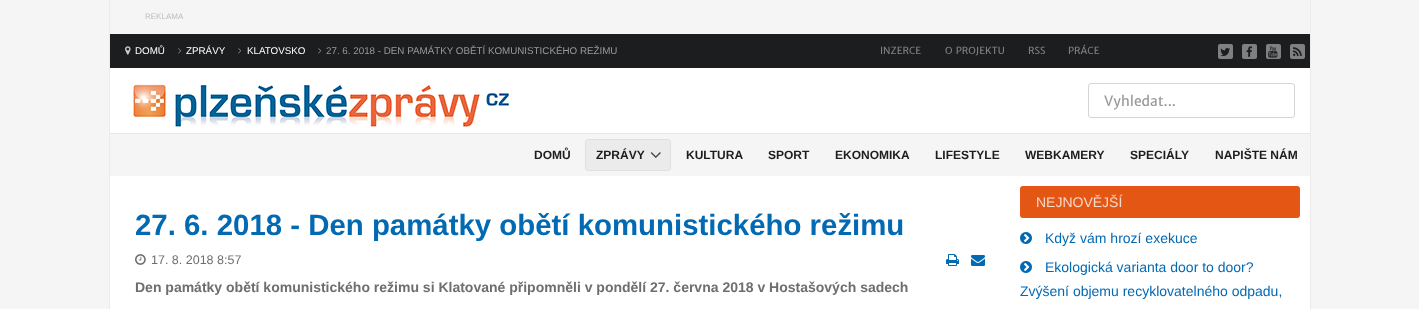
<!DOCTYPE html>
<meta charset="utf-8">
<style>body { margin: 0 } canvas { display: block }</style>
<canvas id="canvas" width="1419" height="309"></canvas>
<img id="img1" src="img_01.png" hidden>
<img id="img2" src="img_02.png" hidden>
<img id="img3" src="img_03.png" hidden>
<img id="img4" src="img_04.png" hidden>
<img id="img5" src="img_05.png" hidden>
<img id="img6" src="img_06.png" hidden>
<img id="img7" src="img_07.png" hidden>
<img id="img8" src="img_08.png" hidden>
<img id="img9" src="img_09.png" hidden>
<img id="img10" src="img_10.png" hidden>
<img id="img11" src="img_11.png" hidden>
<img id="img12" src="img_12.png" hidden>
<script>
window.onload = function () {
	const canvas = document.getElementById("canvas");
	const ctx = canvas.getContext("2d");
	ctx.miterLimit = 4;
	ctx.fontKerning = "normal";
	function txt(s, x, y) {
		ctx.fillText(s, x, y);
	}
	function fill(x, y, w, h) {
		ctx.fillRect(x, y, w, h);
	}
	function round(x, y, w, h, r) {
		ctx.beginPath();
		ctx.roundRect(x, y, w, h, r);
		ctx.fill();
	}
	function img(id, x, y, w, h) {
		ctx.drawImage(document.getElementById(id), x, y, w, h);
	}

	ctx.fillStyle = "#F5F5F5";
	fill(0, 0, 1419, 309);
	ctx.fillStyle = "#EBEBEB";
	fill(1310, 0, 1, 309);
	fill(109, 0, 1, 309);
	ctx.fillStyle = "#1C1D1F";
	fill(110, 34, 1200, 34);
	img("img1", 125, 46, 6, 9);
	img("img2", 178, 48, 4, 6);
	img("img2", 238, 48, 4, 6);
	img("img2", 318, 48, 4, 6);
	ctx.fillStyle = "#808080";
	round(1218, 44, 15, 15, 2);
	img("img3", 1220, 48, 10, 8);
	round(1242, 44, 15, 15, 2);
	img("img4", 1246, 46, 6, 11);
	round(1266, 44, 15, 15, 2);
	img("img5", 1268, 46, 10, 12);
	round(1290, 44, 15, 15, 2);
	img("img6", 1293, 47, 9, 9);
	ctx.fillStyle = "#FFFFFF";
	fill(110, 68, 1200, 65);
	ctx.fillStyle = "#E6E6E6";
	fill(110, 133, 1200, 1);
	img("img7", 133, 84, 376, 43);
	ctx.beginPath();
	ctx.roundRect(1088.5, 83.5, 206, 34, 2.5);
	ctx.strokeStyle = "#D5D5D5";
	ctx.stroke();
	ctx.fillStyle = "#EBEBEB";
	ctx.beginPath();
	ctx.roundRect(585.5, 139.5, 85, 31, 2.5);
	ctx.fill();
	ctx.strokeStyle = "#E0E0E0";
	ctx.stroke();
	img("img8", 650, 152, 11, 6);
	ctx.fillStyle = "#FFFFFF";
	fill(110, 176, 1200, 133);
	img("img9", 135, 254, 11, 11);
	img("img10", 946, 254, 13, 12);
	img("img11", 971, 255, 14, 11);
	ctx.fillStyle = "#E35614";
	round(1020, 186, 280, 32, 3);
	img("img12", 1020, 232, 12, 12);
	img("img12", 1020, 261, 12, 12);
	ctx.font = "8px Liberation Sans";
	ctx.fillStyle = "#BCBCBC";
	txt("REKLAMA", 145, 19);
	ctx.font = "9.8px Liberation Sans";
	ctx.fillStyle = "#FFFFFF";
	txt("DOMŮ", 135, 54);
	txt("ZPRÁVY", 186, 54);
	txt("KLATOVSKO", 247, 54);
	ctx.fillStyle = "#999999";
	txt("27. 6. 2018 - DEN PAMÁTKY OBĚTÍ KOMUNISTICKÉHO REŽIMU", 326, 54);
	ctx.font = "9.8px Merriweather Sans";
	ctx.fillStyle = "#808080";
	txt("INZERCE", 880, 54);
	txt("O PROJEKTU", 945, 54);
	txt("RSS", 1028, 54);
	txt("PRÁCE", 1068, 54);
	ctx.font = "14px Merriweather Sans";
	ctx.fillStyle = "#999999";
	txt("Vyhledat...", 1104, 106);
	ctx.font = "bold 12px Liberation Sans";
	ctx.fillStyle = "#1C1D1F";
	txt("DOMŮ", 534, 159);
	txt("ZPRÁVY", 596, 159);
	txt("KULTURA", 686, 159);
	txt("SPORT", 768, 159);
	txt("EKONOMIKA", 835, 159);
	txt("LIFESTYLE", 935, 159);
	txt("WEBKAMERY", 1025, 159);
	txt("SPECIÁLY", 1130, 159);
	txt("NAPIŠTE NÁM", 1215, 159);
	ctx.font = "bold 29.4px Liberation Sans";
	ctx.fillStyle = "#0269B3";
	txt("27. 6. 2018 - Den památky obětí komunistického režimu", 135, 235);
	ctx.font = "12.5px Liberation Sans";
	ctx.fillStyle = "#6E6E6E";
	txt("17. 8. 2018 8:57", 151, 264);
	ctx.font = "bold 14px Liberation Sans";
	txt("Den památky obětí komunistického režimu si Klatované připomněli v pondělí 27. června 2018 v Hostašových sadech", 135, 292);
	ctx.font = "14px Liberation Sans";
	ctx.fillStyle = "#FAD9C9";
	txt("NEJNOVĚJŠÍ", 1036, 207);
	ctx.fillStyle = "#0269B3";
	txt("Když vám hrozí exekuce", 1045, 243);
	txt("Ekologická varianta door to door?", 1045, 272);
	txt("Zvýšení objemu recyklovatelného odpadu,", 1020, 296);
};
</script>
